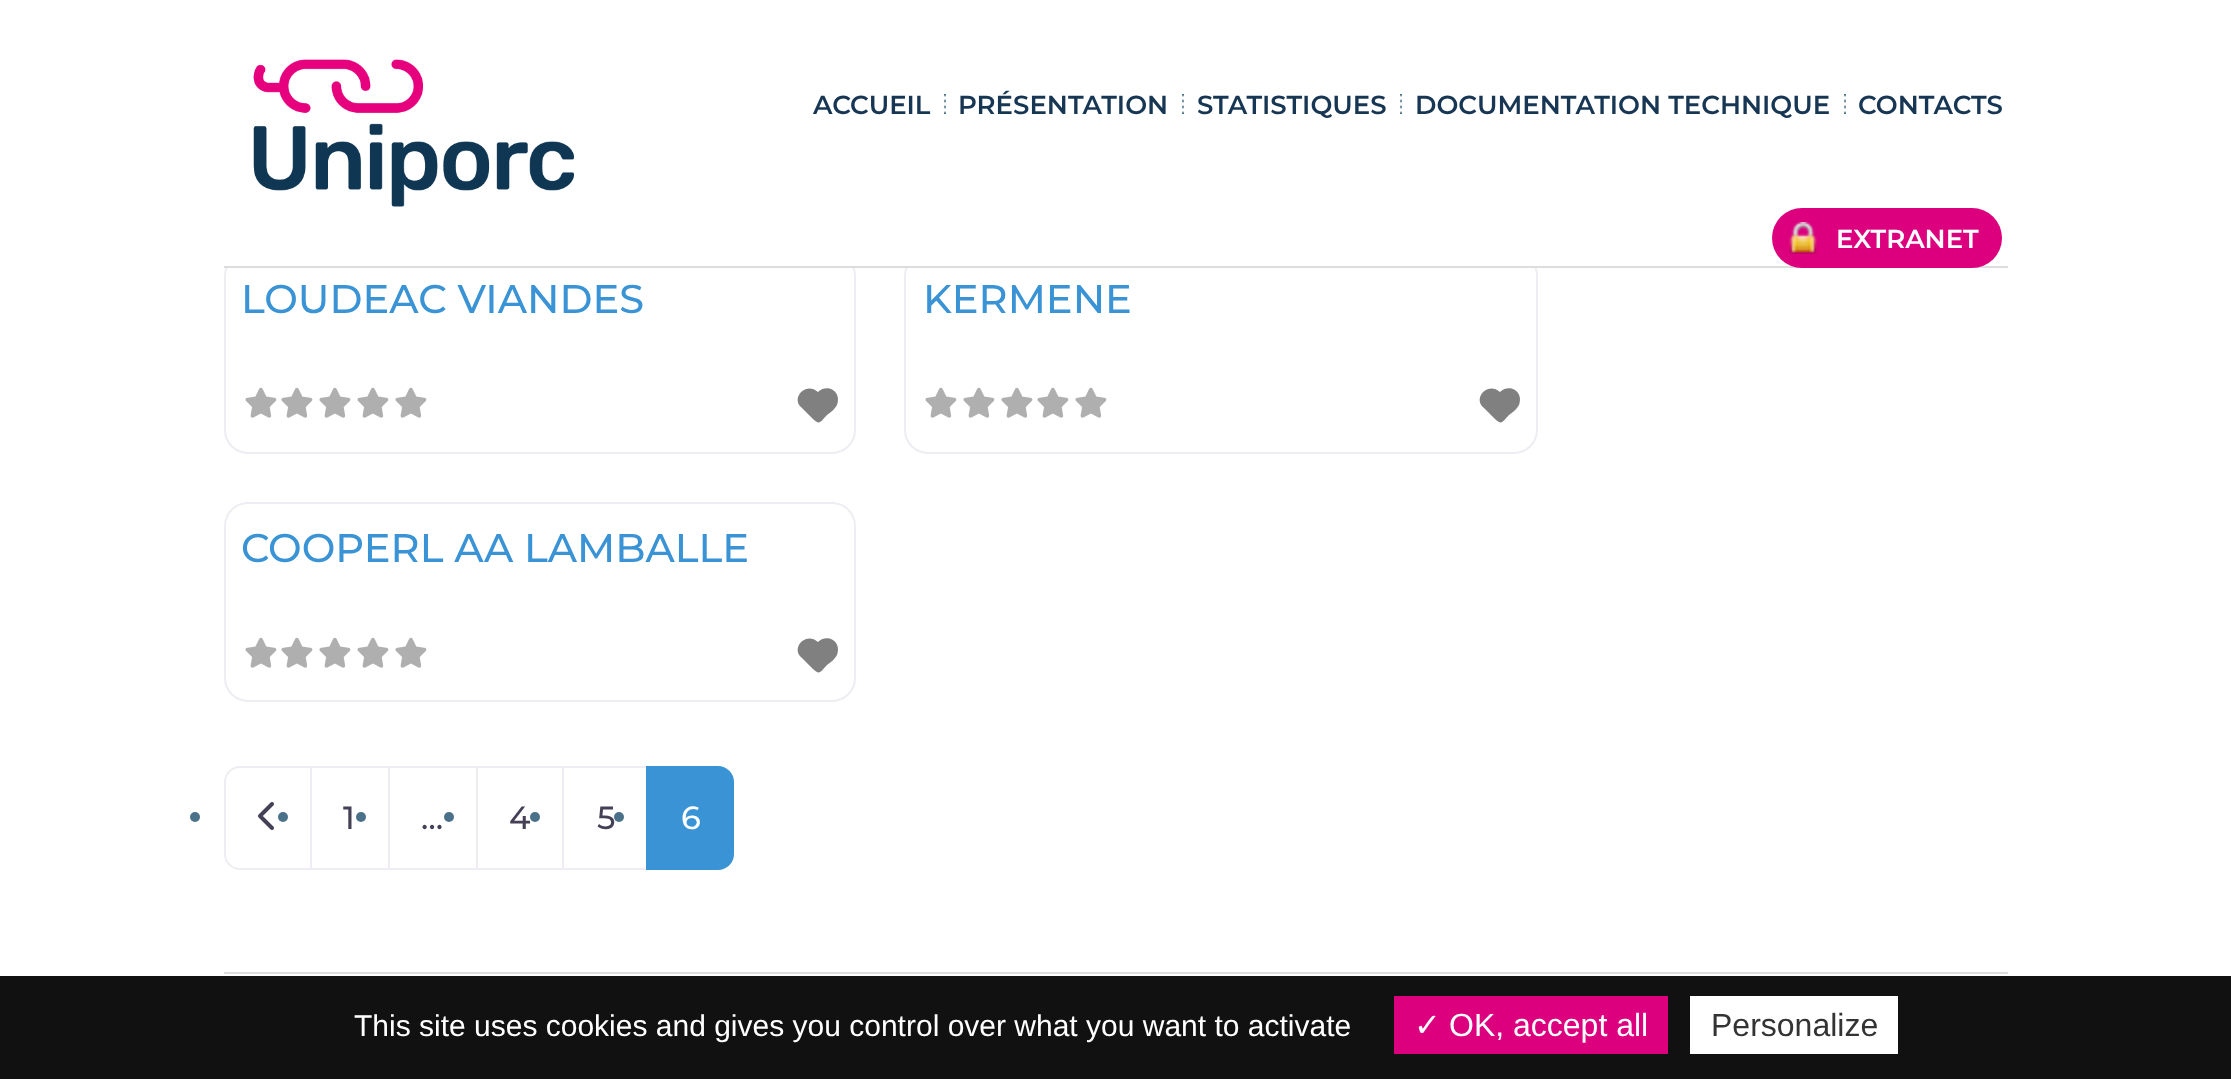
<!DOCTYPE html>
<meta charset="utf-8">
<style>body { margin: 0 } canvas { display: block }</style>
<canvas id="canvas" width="2231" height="1079"></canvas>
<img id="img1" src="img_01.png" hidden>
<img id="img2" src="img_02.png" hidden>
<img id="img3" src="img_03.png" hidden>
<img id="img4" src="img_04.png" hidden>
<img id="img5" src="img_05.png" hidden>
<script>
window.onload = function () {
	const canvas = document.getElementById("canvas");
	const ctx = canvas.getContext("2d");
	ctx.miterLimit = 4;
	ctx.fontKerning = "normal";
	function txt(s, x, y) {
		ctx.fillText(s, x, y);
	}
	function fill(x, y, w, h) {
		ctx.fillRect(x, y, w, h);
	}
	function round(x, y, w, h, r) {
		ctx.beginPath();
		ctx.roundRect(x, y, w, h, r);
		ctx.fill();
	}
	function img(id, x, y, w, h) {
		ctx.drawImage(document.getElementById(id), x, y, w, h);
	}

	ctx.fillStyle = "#FFFFFF";
	fill(0, 0, 2231, 1079);
	ctx.beginPath();
	ctx.roundRect(225, 253, 630, 200, 23);
	ctx.strokeStyle = "#EFECF3";
	ctx.lineWidth = 2;
	ctx.stroke();
	ctx.beginPath();
	ctx.roundRect(905, 253, 632, 200, 23);
	ctx.stroke();
	fill(225, 252, 1312, 16);
	ctx.fillStyle = "#DDDDDD";
	fill(224, 266, 1784, 2);
	img("img1", 253, 59, 321, 148);
	img("img2", 944, 94, 2, 20);
	img("img2", 1182, 94, 2, 20);
	img("img2", 1400, 94, 2, 20);
	img("img2", 1844, 94, 2, 20);
	ctx.fillStyle = "#DC007E";
	round(1772, 208, 230, 60, 30);
	img("img3", 1789, 222, 28, 32);
	img("img4", 245, 387, 32, 31);
	img("img4", 281, 387, 32, 31);
	img("img4", 319, 387, 32, 31);
	img("img4", 357, 387, 32, 31);
	img("img4", 395, 387, 32, 31);
	ctx.fillStyle = "#808080";
	ctx.beginPath();
	ctx.moveTo(802, 408);
	ctx.lineTo(816, 422);
	ctx.lineTo(802, 408);
	ctx.lineTo(813, 419);
	ctx.bezierCurveTo(820, 426, 821, 421, 827, 415);
	ctx.bezierCurveTo(831, 412, 835, 409, 837, 405);
	ctx.bezierCurveTo(842, 392, 828, 383, 818, 392);
	ctx.bezierCurveTo(806, 381, 790, 398, 802, 408);
	ctx.closePath();
	ctx.fill();
	img("img4", 925, 387, 32, 31);
	img("img4", 963, 387, 32, 31);
	img("img4", 1001, 387, 32, 31);
	img("img4", 1037, 387, 32, 31);
	img("img4", 1075, 387, 32, 31);
	ctx.beginPath();
	ctx.moveTo(1484, 408);
	ctx.lineTo(1498, 422);
	ctx.lineTo(1484, 408);
	ctx.lineTo(1495, 419);
	ctx.bezierCurveTo(1502, 426, 1503, 421, 1509, 415);
	ctx.bezierCurveTo(1513, 412, 1517, 409, 1519, 405);
	ctx.bezierCurveTo(1524, 392, 1510, 383, 1500, 392);
	ctx.bezierCurveTo(1488, 381, 1472, 398, 1484, 408);
	ctx.closePath();
	ctx.fill();
	ctx.beginPath();
	ctx.roundRect(225, 503, 630, 198, 23);
	ctx.stroke();
	img("img4", 245, 637, 32, 31);
	img("img4", 281, 637, 32, 31);
	img("img4", 319, 637, 32, 31);
	img("img4", 357, 637, 32, 31);
	img("img4", 395, 637, 32, 31);
	ctx.beginPath();
	ctx.moveTo(802, 658);
	ctx.lineTo(816, 672);
	ctx.lineTo(802, 658);
	ctx.lineTo(813, 669);
	ctx.bezierCurveTo(820, 676, 821, 671, 827, 665);
	ctx.bezierCurveTo(831, 662, 835, 659, 837, 655);
	ctx.bezierCurveTo(842, 642, 828, 633, 818, 642);
	ctx.bezierCurveTo(806, 631, 790, 648, 802, 658);
	ctx.closePath();
	ctx.fill();
	ctx.fillStyle = "#4A7189";
	ctx.beginPath();
	ctx.arc(195, 817, 5, 0, Math.PI * 2);
	ctx.fill();
	ctx.beginPath();
	ctx.arc(283, 817, 5, 0, Math.PI * 2);
	ctx.fill();
	ctx.beginPath();
	ctx.roundRect(225, 767, 86, 102, [15, 0, 0, 15]);
	ctx.stroke();
	img("img5", 258, 802, 16, 28);
	ctx.beginPath();
	ctx.arc(361, 817, 5, 0, Math.PI * 2);
	ctx.fill();
	ctx.strokeRect(311, 767, 78, 102);
	ctx.beginPath();
	ctx.arc(449, 817, 5, 0, Math.PI * 2);
	ctx.fill();
	ctx.strokeRect(389, 767, 88, 102);
	ctx.beginPath();
	ctx.arc(535, 817, 5, 0, Math.PI * 2);
	ctx.fill();
	ctx.strokeRect(477, 767, 86, 102);
	ctx.beginPath();
	ctx.arc(619, 817, 5, 0, Math.PI * 2);
	ctx.fill();
	ctx.strokeRect(563, 767, 84, 102);
	ctx.fillStyle = "#3993D5";
	ctx.beginPath();
	ctx.roundRect(646, 766, 88, 104, [0, 16, 16, 0]);
	ctx.fill();
	ctx.fillStyle = "#DDDDDD";
	fill(224, 972, 1784, 2);
	ctx.fillStyle = "#111111";
	fill(0, 976, 2231, 103);
	ctx.fillStyle = "#DC007E";
	fill(1394, 996, 274, 58);
	ctx.fillStyle = "#FFFFFF";
	fill(1690, 996, 208, 58);
	ctx.font = "100 26px 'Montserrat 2'";
	ctx.fillStyle = "#173654";
	txt("ACCUEIL", 813, 114);
	txt("PRÉSENTATION", 958, 114);
	txt("STATISTIQUES", 1197, 114);
	txt("DOCUMENTATION TECHNIQUE", 1415, 114);
	txt("CONTACTS", 1858, 114);
	ctx.fillStyle = "#FFFFFF";
	txt("EXTRANET", 1836, 248);
	ctx.font = "100 40px Montserrat";
	ctx.fillStyle = "#3993D5";
	txt("LOUDEAC VIANDES", 241, 313);
	txt("KERMENE", 923, 313);
	txt("COOPERL AA LAMBALLE", 241, 562);
	ctx.font = "100 32px Montserrat";
	ctx.fillStyle = "#454056";
	txt("1", 343, 829);
	txt("…", 421, 829);
	txt("4", 509, 829);
	txt("5", 597, 829);
	ctx.fillStyle = "#FFFFFF";
	txt("6", 681, 829);
	ctx.font = "30px Liberation Sans";
	txt("This site uses cookies and gives you control over what you want to activate", 354, 1036);
	ctx.font = "32px DejaVu Sans";
	txt("✓", 1414, 1036);
	ctx.font = "32px Liberation Sans";
	txt("OK, accept all", 1449, 1036);
	ctx.fillStyle = "#333333";
	txt("Personalize", 1711, 1036);
};
</script>
